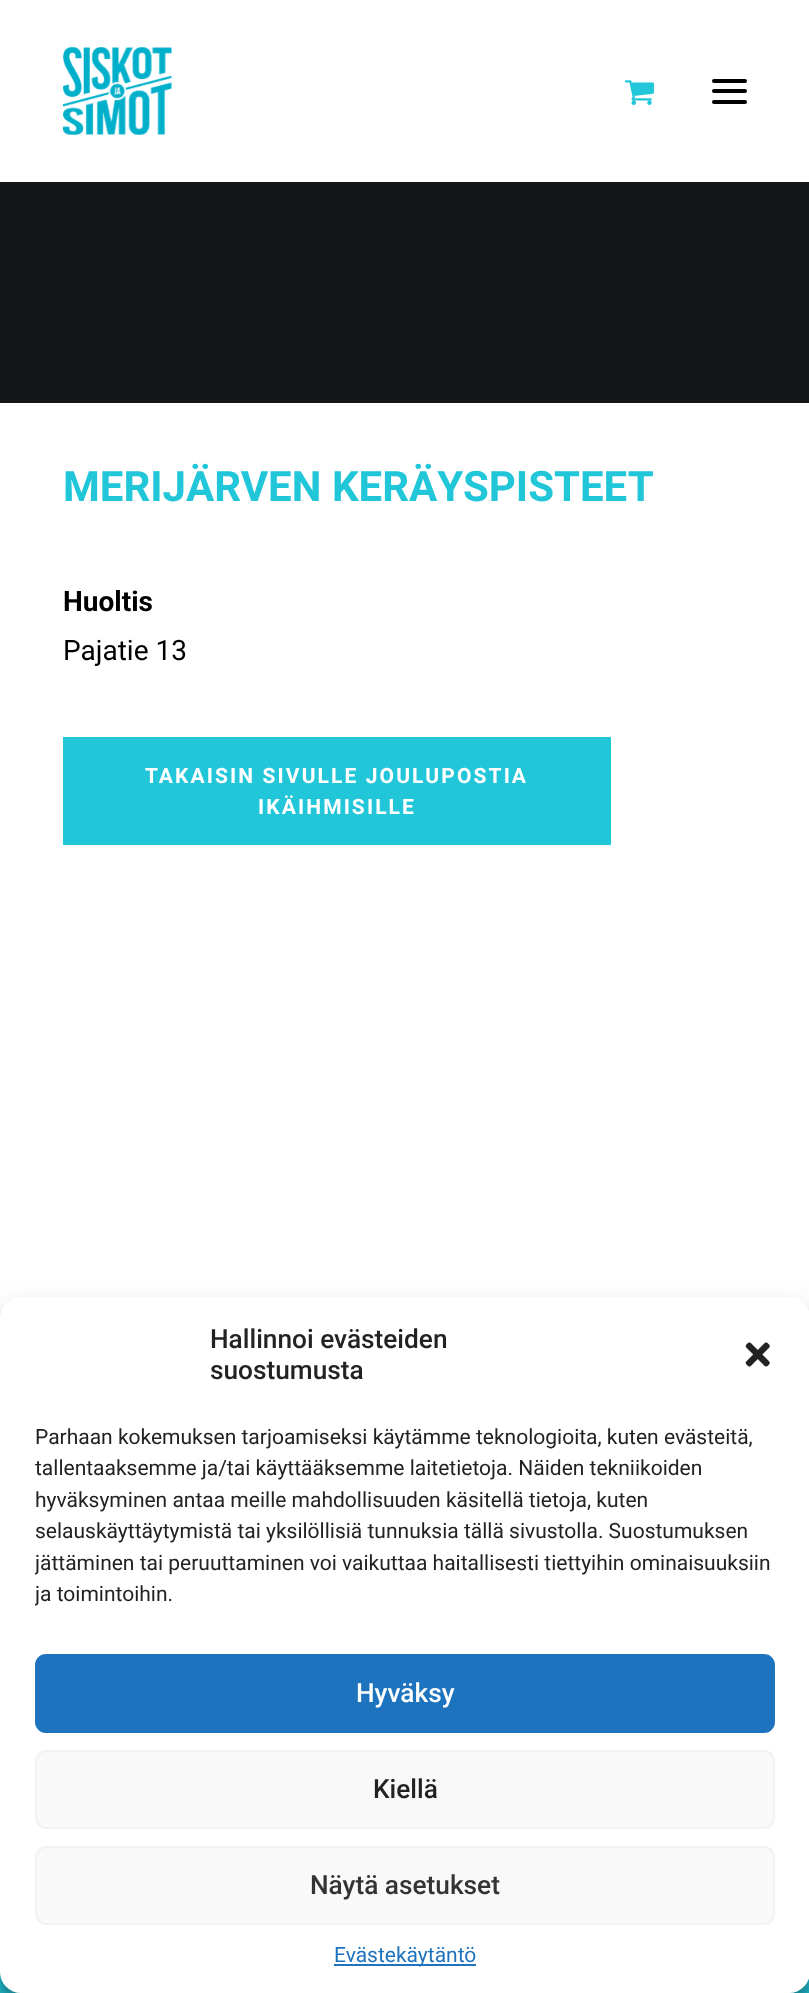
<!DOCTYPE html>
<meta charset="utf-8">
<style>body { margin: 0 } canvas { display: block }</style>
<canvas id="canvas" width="809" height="1993"></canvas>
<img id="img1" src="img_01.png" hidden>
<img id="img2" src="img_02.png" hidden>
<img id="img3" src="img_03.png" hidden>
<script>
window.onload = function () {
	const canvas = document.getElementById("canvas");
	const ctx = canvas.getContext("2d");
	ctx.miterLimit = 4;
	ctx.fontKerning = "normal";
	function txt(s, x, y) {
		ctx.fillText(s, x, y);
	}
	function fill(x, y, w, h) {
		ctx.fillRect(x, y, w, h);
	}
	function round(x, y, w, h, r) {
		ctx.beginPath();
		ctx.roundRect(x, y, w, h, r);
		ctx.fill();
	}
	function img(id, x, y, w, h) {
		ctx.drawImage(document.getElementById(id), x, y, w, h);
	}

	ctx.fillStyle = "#FFFFFF";
	fill(0, 0, 809, 1993);
	img("img1", 63, 47, 109, 88);
	img("img2", 624, 80, 30, 25);
	ctx.fillStyle = "#000000";
	round(712, 89, 35, 4, 2);
	round(712, 79, 35, 4, 2);
	round(712, 100, 35, 4, 2);
	ctx.fillStyle = "#141618";
	fill(0, 182, 809, 221);
	ctx.fillStyle = "#22C6D9";
	fill(63, 737, 548, 108);
	fill(0, 1972, 809, 21);
	ctx.fillStyle = "rgba(0, 0, 0, 0.23)";
	ctx.filter = "blur(5px)";
	ctx.beginPath();
	ctx.roundRect(0, 1307, 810, 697, 21);
	ctx.fill();
	ctx.filter = "none";
	ctx.fillStyle = "rgba(0, 0, 0, 0.19)";
	ctx.filter = "blur(17.5px)";
	ctx.beginPath();
	ctx.roundRect(0, 1314, 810, 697, 21);
	ctx.fill();
	ctx.filter = "none";
	ctx.fillStyle = "#FFFFFF";
	round(0, 1297, 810, 696, 21);
	img("img3", 745, 1342, 25, 25);
	ctx.fillStyle = "#1E73BE";
	ctx.beginPath();
	ctx.roundRect(36, 1655, 738, 77, 10);
	ctx.fill();
	ctx.strokeStyle = "#1E73BE";
	ctx.lineWidth = 2;
	ctx.stroke();
	ctx.fillStyle = "#F9F9F9";
	ctx.beginPath();
	ctx.roundRect(36, 1751, 738, 77, 10);
	ctx.fill();
	ctx.strokeStyle = "#F2F2F2";
	ctx.stroke();
	ctx.beginPath();
	ctx.roundRect(36, 1847, 738, 77, 10);
	ctx.fill();
	ctx.stroke();
	ctx.fillStyle = "#1E73BE";
	fill(334, 1964, 142, 2);
	ctx.font = "bold 42px Heebo";
	ctx.fillStyle = "#22C6D9";
	txt("MERIJÄRVEN KERÄYSPISTEET", 63, 501);
	ctx.font = "bold 28px Roboto";
	ctx.fillStyle = "#000000";
	txt("Huoltis", 63, 611);
	ctx.font = "28px Roboto";
	txt("Pajatie 13", 63, 660);
	ctx.letterSpacing = "2.1px";
	ctx.font = "bold 21px Heebo";
	ctx.fillStyle = "#FFFFFF";
	txt("TAKAISIN SIVULLE JOULUPOSTIA", 145, 783);
	txt("IKÄIHMISILLE", 258, 814);
	ctx.letterSpacing = "0px";
	ctx.font = "500 26.25px Roboto";
	ctx.fillStyle = "#222222";
	txt("Hallinnoi evästeiden", 210, 1348);
	txt("suostumusta", 210, 1379);
	ctx.font = "21px Roboto";
	txt("Parhaan kokemuksen tarjoamiseksi käytämme teknologioita, kuten evästeitä,", 35, 1444);
	txt("tallentaaksemme ja/tai käyttääksemme laitetietoja. Näiden tekniikoiden", 35, 1475);
	txt("hyväksyminen antaa meille mahdollisuuden käsitellä tietoja, kuten", 35, 1507);
	txt("selauskäyttäytymistä tai yksilöllisiä tunnuksia tällä sivustolla. Suostumuksen", 35, 1538);
	ctx.save();
	ctx.beginPath();
	ctx.rect(35, 1421, 740, 198);
	ctx.clip();
	txt("jättäminen tai peruuttaminen voi vaikuttaa haitallisesti tiettyihin ominaisuuksiin", 35, 1570);
	txt("ja toimintoihin.", 35, 1601);
	ctx.restore();
	ctx.font = "500 26.25px Roboto";
	ctx.fillStyle = "#FFFFFF";
	txt("Hyväksy", 356, 1702);
	ctx.fillStyle = "#222222";
	txt("Kiellä", 373, 1798);
	ctx.fillStyle = "#333333";
	txt("Näytä asetukset", 310, 1894);
	ctx.font = "21px Roboto";
	ctx.fillStyle = "#1E73BE";
	txt("Evästekäytäntö", 334, 1962);
};
</script>
